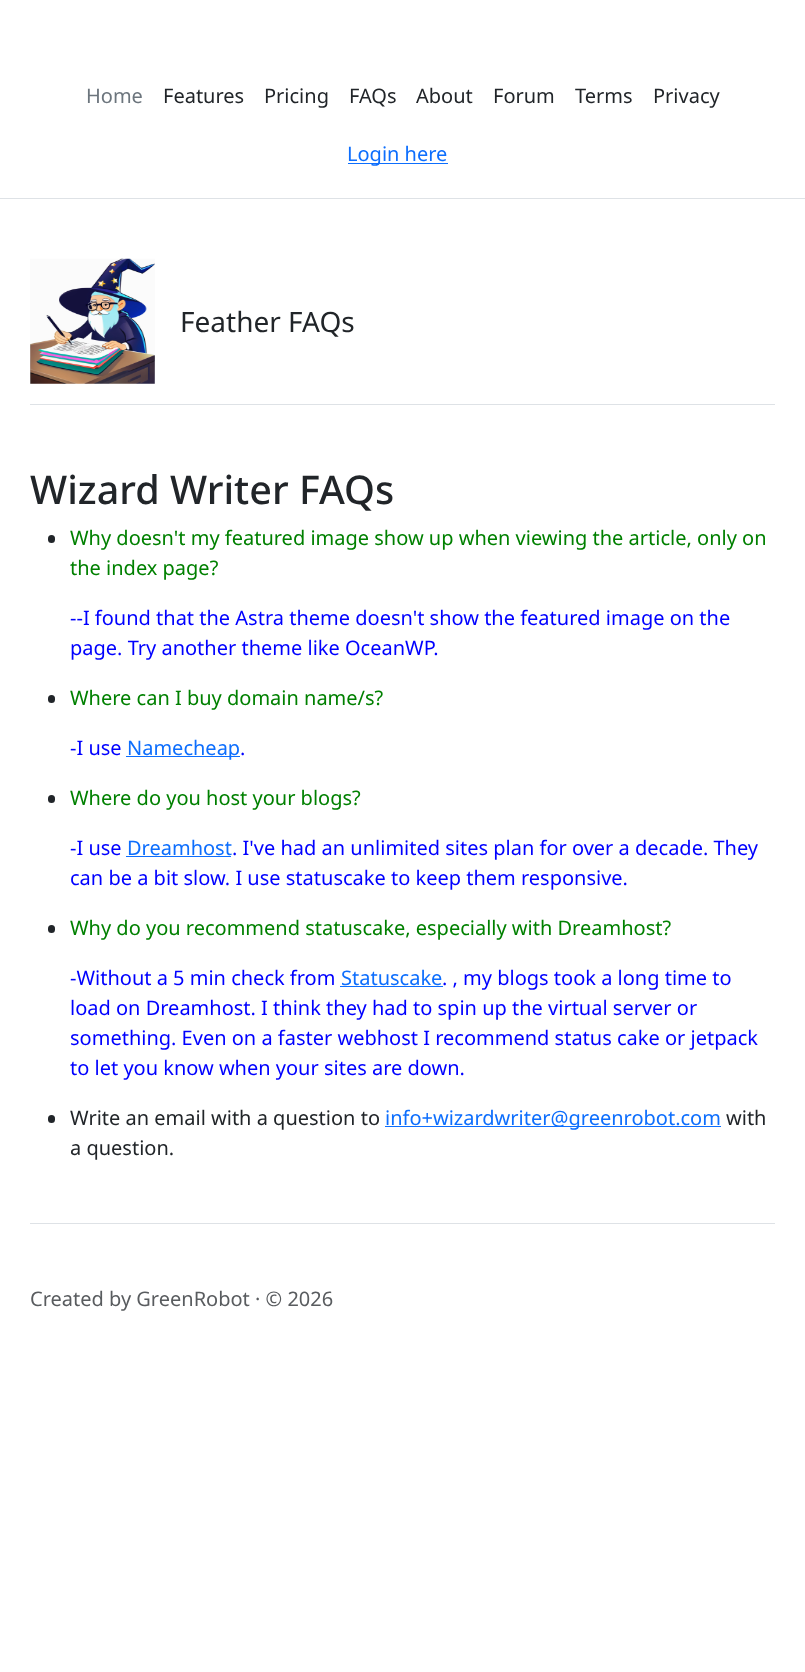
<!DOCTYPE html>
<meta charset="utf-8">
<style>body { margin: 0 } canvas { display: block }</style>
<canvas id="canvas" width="805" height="1672"></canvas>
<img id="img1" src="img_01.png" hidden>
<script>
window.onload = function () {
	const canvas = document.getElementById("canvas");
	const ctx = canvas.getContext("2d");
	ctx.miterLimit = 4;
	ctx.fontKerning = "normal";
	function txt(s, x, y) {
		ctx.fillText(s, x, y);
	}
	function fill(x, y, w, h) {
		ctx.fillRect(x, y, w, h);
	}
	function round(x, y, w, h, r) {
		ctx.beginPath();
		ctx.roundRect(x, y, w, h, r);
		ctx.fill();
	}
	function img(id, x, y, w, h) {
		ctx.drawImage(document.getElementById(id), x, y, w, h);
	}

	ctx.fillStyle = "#FFFFFF";
	fill(0, 0, 805, 1672);
	ctx.fillStyle = "#DEE2E6";
	fill(0, 198, 805, 1);
	ctx.fillStyle = "#0D6EFD";
	fill(348, 163, 100, 1);
	ctx.fillStyle = "#DEE2E6";
	fill(30, 404, 745, 1);
	img("img1", 30, 258, 125, 126);
	ctx.fillStyle = "#212529";
	round(48, 535, 7, 8, 3.5);
	round(48, 695, 7, 8, 3.5);
	ctx.fillStyle = "#0D6EFD";
	fill(126, 756, 114, 1);
	ctx.fillStyle = "#212529";
	round(48, 795, 7, 8, 3.5);
	ctx.fillStyle = "#0D6EFD";
	fill(126, 856, 105, 1);
	ctx.fillStyle = "#212529";
	round(48, 925, 7, 8, 3.5);
	ctx.fillStyle = "#0D6EFD";
	fill(340, 986, 103, 1);
	ctx.fillStyle = "#212529";
	round(48, 1115, 7, 8, 3.5);
	ctx.fillStyle = "#0D6EFD";
	fill(385, 1126, 336, 1);
	ctx.fillStyle = "#DEE2E6";
	fill(30, 1223, 745, 1);
	ctx.font = "20px Noto Sans";
	ctx.fillStyle = "#6C757D";
	txt("Home", 86, 103);
	ctx.fillStyle = "#212529";
	txt("Features", 163, 103);
	txt("Pricing", 264, 103);
	txt("FAQs", 349, 103);
	txt("About", 416, 103);
	txt("Forum", 493, 103);
	txt("Terms", 575, 103);
	txt("Privacy", 653, 103);
	ctx.fillStyle = "#0D6EFD";
	txt("Login here", 347, 161);
	ctx.font = "28px Noto Sans";
	ctx.fillStyle = "#212529";
	txt("Feather FAQs", 180, 332);
	ctx.font = "500 39.5px Noto Sans";
	txt("Wizard Writer FAQs", 30, 504);
	ctx.font = "20px Noto Sans";
	ctx.fillStyle = "#008000";
	txt("Why doesn't my featured image show up when viewing the article, only on", 70, 545);
	txt("the index page?", 70, 575);
	ctx.fillStyle = "#0000FF";
	txt("--I found that the Astra theme doesn't show the featured image on the", 70, 625);
	txt("page. Try another theme like OceanWP.", 70, 655);
	ctx.fillStyle = "#008000";
	txt("Where can I buy domain name/s?", 70, 705);
	ctx.fillStyle = "#0000FF";
	txt("-I use", 70, 755);
	ctx.fillStyle = "#0D6EFD";
	txt("Namecheap", 127, 755);
	ctx.fillStyle = "#0000FF";
	txt(".", 240, 755);
	ctx.fillStyle = "#008000";
	txt("Where do you host your blogs?", 70, 805);
	ctx.fillStyle = "#0000FF";
	txt("-I use", 70, 855);
	ctx.fillStyle = "#0D6EFD";
	txt("Dreamhost", 127, 855);
	ctx.fillStyle = "#0000FF";
	txt(". I've had an unlimited sites plan for over a decade. They", 232, 855);
	txt("can be a bit slow. I use statuscake to keep them responsive.", 70, 885);
	ctx.fillStyle = "#008000";
	txt("Why do you recommend statuscake, especially with Dreamhost?", 70, 935);
	ctx.fillStyle = "#0000FF";
	txt("-Without a 5 min check from", 70, 985);
	ctx.fillStyle = "#0D6EFD";
	txt("Statuscake", 341, 985);
	ctx.fillStyle = "#0000FF";
	txt(". , my blogs took a long time to", 442, 985);
	txt("load on Dreamhost. I think they had to spin up the virtual server or", 70, 1015);
	txt("something. Even on a faster webhost I recommend status cake or jetpack", 70, 1045);
	txt("to let you know when your sites are down.", 70, 1075);
	ctx.fillStyle = "#212529";
	txt("Write an email with a question to", 70, 1125);
	ctx.fillStyle = "#0D6EFD";
	txt("info+wizardwriter@greenrobot.com", 385, 1125);
	ctx.fillStyle = "#212529";
	txt("with", 726, 1125);
	txt("a question.", 70, 1155);
	ctx.fillStyle = "#595C5F";
	txt("Created by GreenRobot · © 2026", 30, 1306);
};
</script>
